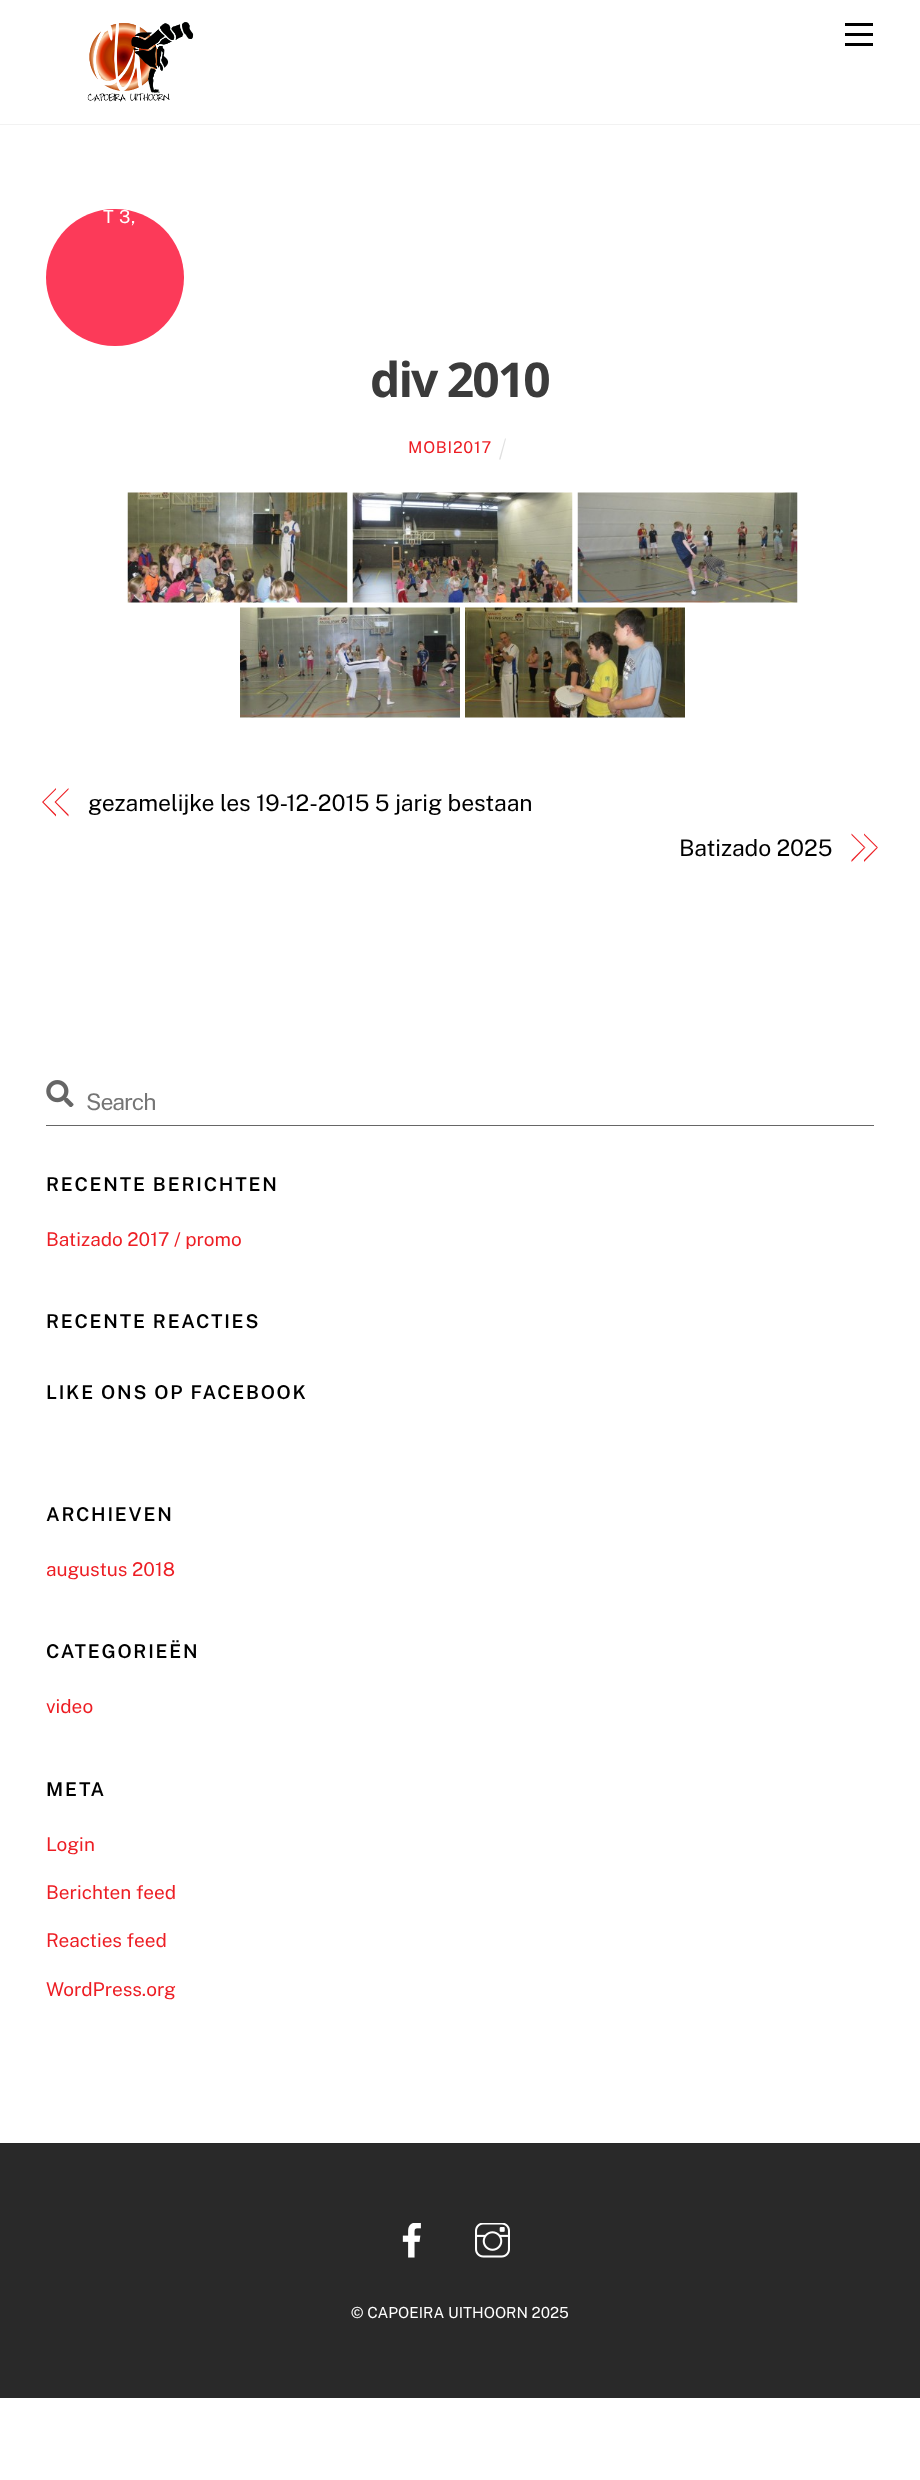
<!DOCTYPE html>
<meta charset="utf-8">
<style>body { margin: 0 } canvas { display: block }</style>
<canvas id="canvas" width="920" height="2480"></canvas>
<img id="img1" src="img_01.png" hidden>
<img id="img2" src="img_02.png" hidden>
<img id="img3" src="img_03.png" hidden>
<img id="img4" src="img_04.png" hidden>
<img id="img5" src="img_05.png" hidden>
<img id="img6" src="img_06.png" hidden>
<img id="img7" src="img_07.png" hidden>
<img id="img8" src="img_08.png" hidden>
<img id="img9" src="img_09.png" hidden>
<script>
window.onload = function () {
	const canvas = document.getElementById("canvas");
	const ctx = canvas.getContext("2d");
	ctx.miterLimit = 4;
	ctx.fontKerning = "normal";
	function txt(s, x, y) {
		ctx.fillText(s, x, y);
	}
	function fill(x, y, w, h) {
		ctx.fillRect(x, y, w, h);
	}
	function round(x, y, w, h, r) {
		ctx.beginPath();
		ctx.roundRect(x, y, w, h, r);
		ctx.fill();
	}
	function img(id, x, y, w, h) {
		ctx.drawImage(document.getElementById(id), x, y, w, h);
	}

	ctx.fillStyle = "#FFFFFF";
	fill(0, 0, 920, 2480);
	ctx.fillStyle = "#F2F2F2";
	fill(0, 124, 920, 1);
	img("img1", 87, 22, 107, 80);
	ctx.fillStyle = "#000000";
	fill(845, 43, 28, 3);
	fill(845, 23, 28, 3);
	fill(845, 33, 28, 3);
	ctx.fillStyle = "#FC3A59";
	round(46, 209, 138, 137, 68.5);
	ctx.fillStyle = "#E0E0E0";
	ctx.beginPath();
	ctx.moveTo(505, 438.5);
	ctx.lineTo(506, 438.5);
	ctx.lineTo(500.5, 459.5);
	ctx.lineTo(499, 459.5);
	ctx.closePath();
	ctx.fill();
	img("img2", 127, 492, 221, 111);
	img("img3", 352, 492, 221, 111);
	img("img4", 577, 492, 221, 111);
	img("img5", 240, 607, 220, 111);
	img("img6", 465, 607, 220, 111);
	ctx.fillStyle = "#ED1E24";
	ctx.beginPath();
	ctx.moveTo(42, 802);
	ctx.lineTo(56, 788);
	ctx.lineTo(56, 789.5);
	ctx.lineTo(43.5, 802);
	ctx.closePath();
	ctx.moveTo(56, 816.5);
	ctx.lineTo(42, 802);
	ctx.lineTo(43.5, 802);
	ctx.lineTo(56, 814.5);
	ctx.closePath();
	ctx.fill();
	ctx.beginPath();
	ctx.moveTo(54.5, 802);
	ctx.lineTo(68.5, 788);
	ctx.lineTo(68.5, 789.5);
	ctx.lineTo(56, 802);
	ctx.closePath();
	ctx.moveTo(68.5, 816.5);
	ctx.lineTo(54.5, 802);
	ctx.lineTo(56, 802);
	ctx.lineTo(68.5, 814.5);
	ctx.closePath();
	ctx.fill();
	ctx.beginPath();
	ctx.moveTo(864, 833.5);
	ctx.lineTo(878, 847.5);
	ctx.lineTo(876.5, 847.5);
	ctx.lineTo(864, 835);
	ctx.closePath();
	ctx.fill();
	ctx.beginPath();
	ctx.moveTo(878, 847.5);
	ctx.lineTo(864, 862);
	ctx.lineTo(864, 860);
	ctx.lineTo(876.5, 847.5);
	ctx.closePath();
	ctx.fill();
	ctx.beginPath();
	ctx.moveTo(851.5, 833.5);
	ctx.lineTo(865.5, 847.5);
	ctx.lineTo(864, 847.5);
	ctx.lineTo(851.5, 835);
	ctx.closePath();
	ctx.fill();
	ctx.beginPath();
	ctx.moveTo(865.5, 847.5);
	ctx.lineTo(851.5, 862);
	ctx.lineTo(851.5, 860);
	ctx.lineTo(864, 847.5);
	ctx.closePath();
	ctx.fill();
	ctx.fillStyle = "#666666";
	fill(46, 1125, 828, 1);
	img("img7", 46, 1080, 28, 27);
	ctx.fillStyle = "#292929";
	fill(0, 2144, 920, 254);
	ctx.fillStyle = "#272727";
	fill(0, 2143, 920, 1);
	img("img8", 402, 2223, 19, 35);
	img("img9", 475, 2223, 35, 35);
	ctx.letterSpacing = "0.5px";
	ctx.font = "18px Public Sans";
	ctx.fillStyle = "#FFFFFF";
	txt("T 3,", 103, 223);
	ctx.letterSpacing = "-2px";
	ctx.font = "bold 48px Open Sans";
	ctx.fillStyle = "#3B3B3B";
	txt("div 2010", 370, 397);
	ctx.letterSpacing = "0.75px";
	ctx.font = "16.25px Public Sans";
	ctx.fillStyle = "#ED1E24";
	txt("MOBI2017", 408, 453);
	ctx.letterSpacing = "-0.1px";
	ctx.font = "23px Public Sans";
	ctx.fillStyle = "#000000";
	txt("gezamelijke les 19-12-2015 5 jarig bestaan", 88, 811);
	txt("Batizado 2025", 679, 856);
	ctx.letterSpacing = "-1px";
	ctx.fillStyle = "#757575";
	txt("Search", 86, 1110);
	ctx.letterSpacing = "1.75px";
	ctx.font = "600 19px Public Sans";
	ctx.fillStyle = "#000000";
	txt("RECENTE BERICHTEN", 46, 1191);
	ctx.letterSpacing = "0px";
	ctx.font = "19px Public Sans";
	ctx.fillStyle = "#ED1E24";
	txt("Batizado 2017 / promo", 46, 1246);
	ctx.letterSpacing = "1.75px";
	ctx.font = "600 19px Public Sans";
	ctx.fillStyle = "#000000";
	txt("RECENTE REACTIES", 46, 1328);
	txt("LIKE ONS OP FACEBOOK", 46, 1399);
	txt("ARCHIEVEN", 46, 1521);
	ctx.letterSpacing = "0px";
	ctx.font = "19px Public Sans";
	ctx.fillStyle = "#ED1E24";
	txt("augustus 2018", 46, 1576);
	ctx.letterSpacing = "1.75px";
	ctx.font = "600 19px Public Sans";
	ctx.fillStyle = "#000000";
	txt("CATEGORIEËN", 46, 1658);
	ctx.letterSpacing = "0px";
	ctx.font = "19px Public Sans";
	ctx.fillStyle = "#ED1E24";
	txt("video", 46, 1713);
	ctx.letterSpacing = "1.75px";
	ctx.font = "600 19px Public Sans";
	ctx.fillStyle = "#000000";
	txt("META", 46, 1796);
	ctx.letterSpacing = "0px";
	ctx.font = "19px Public Sans";
	ctx.fillStyle = "#ED1E24";
	txt("Login", 46, 1851);
	txt("Berichten feed", 46, 1899);
	txt("Reacties feed", 46, 1947);
	txt("WordPress.org", 46, 1996);
	ctx.font = "15.25px Public Sans";
	ctx.fillStyle = "#FFFFFF";
	txt("© CAPOEIRA UITHOORN 2025", 351, 2318);
};
</script>
